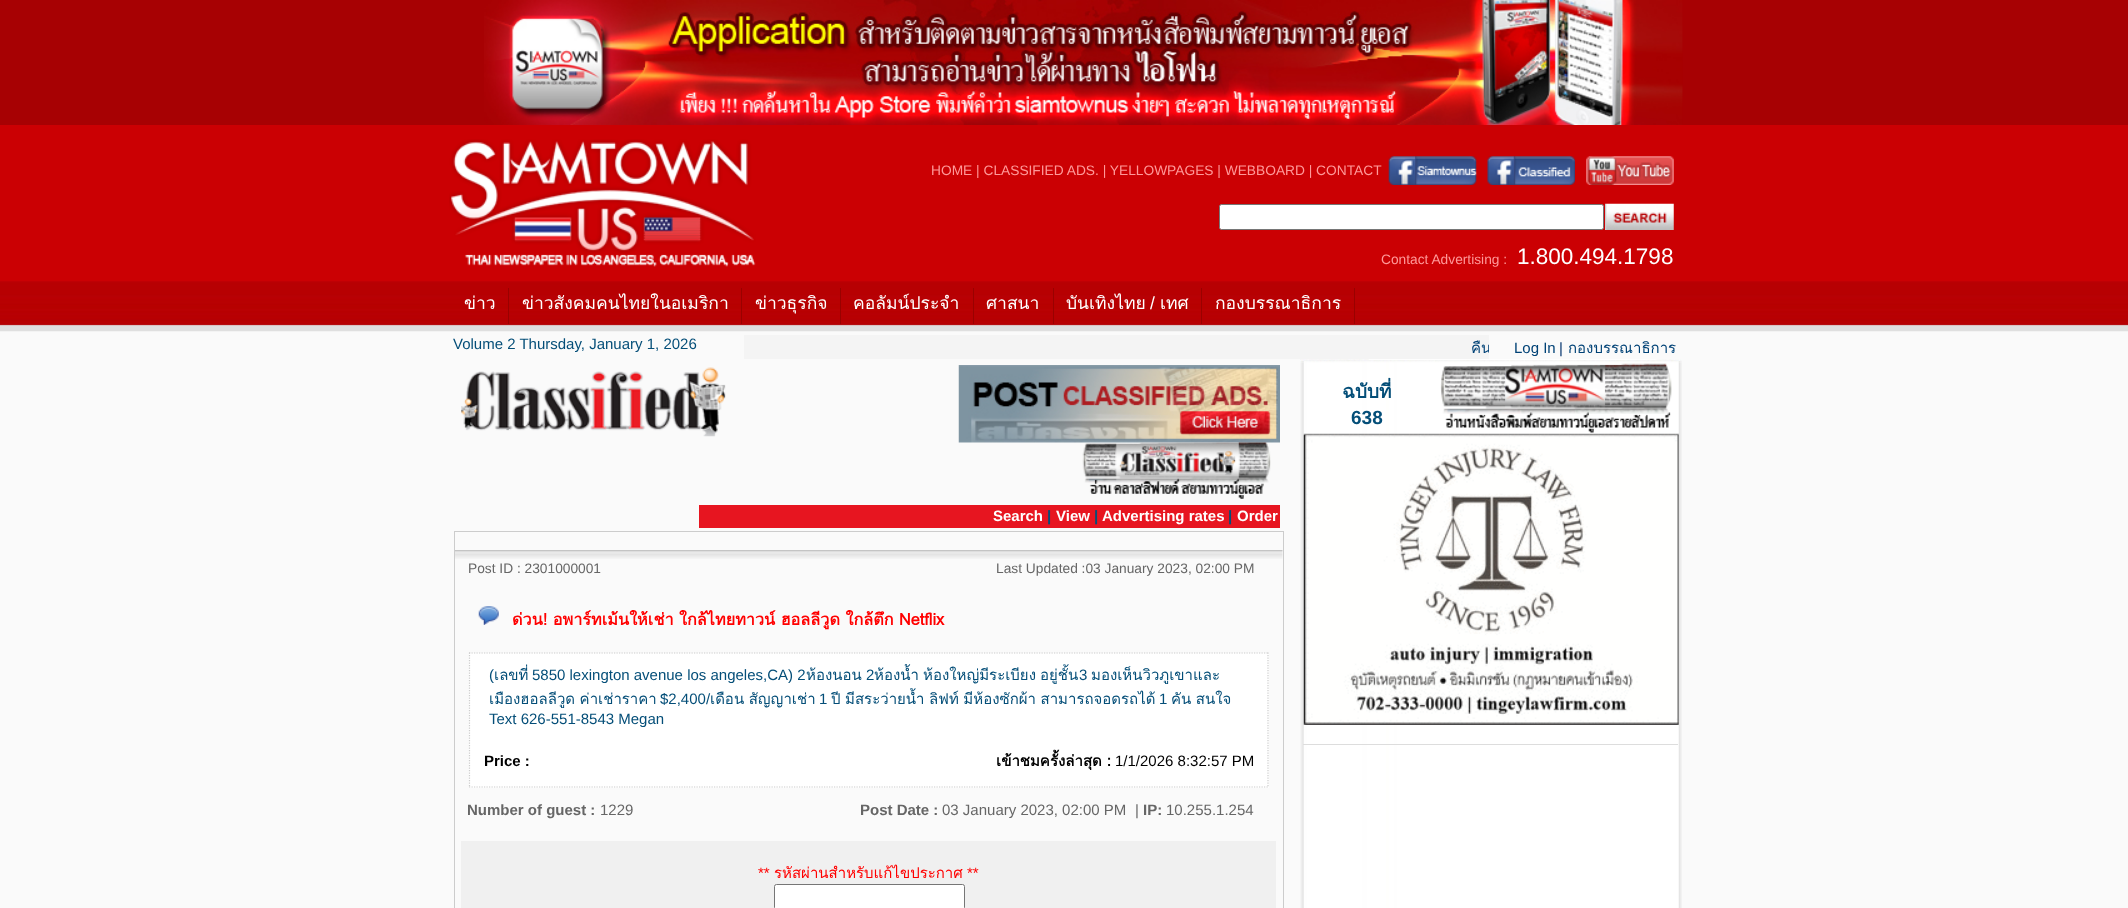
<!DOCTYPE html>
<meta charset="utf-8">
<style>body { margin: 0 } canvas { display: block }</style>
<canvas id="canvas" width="2128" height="908"></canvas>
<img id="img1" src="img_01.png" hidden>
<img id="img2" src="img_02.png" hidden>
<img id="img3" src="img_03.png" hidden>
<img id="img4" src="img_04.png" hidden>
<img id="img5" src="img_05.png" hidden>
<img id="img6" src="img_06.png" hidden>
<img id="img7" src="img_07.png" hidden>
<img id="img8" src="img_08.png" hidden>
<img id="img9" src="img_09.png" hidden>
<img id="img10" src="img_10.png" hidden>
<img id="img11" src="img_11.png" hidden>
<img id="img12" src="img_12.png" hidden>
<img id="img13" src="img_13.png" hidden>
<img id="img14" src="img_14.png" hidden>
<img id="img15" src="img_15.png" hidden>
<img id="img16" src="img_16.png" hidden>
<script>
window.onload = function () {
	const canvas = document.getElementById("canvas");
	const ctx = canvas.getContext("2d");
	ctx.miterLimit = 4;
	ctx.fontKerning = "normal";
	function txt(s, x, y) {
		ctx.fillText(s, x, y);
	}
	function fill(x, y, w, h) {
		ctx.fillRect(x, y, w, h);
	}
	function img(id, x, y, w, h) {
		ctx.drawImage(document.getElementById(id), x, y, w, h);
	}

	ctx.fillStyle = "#FAFAFA";
	fill(0, 0, 2128, 908);
	ctx.fillStyle = "#A70103";
	fill(0, 0, 2128, 125);
	img("img1", 484, 0, 1199, 125);
	img("img2", 0, 125, 2128, 207);
	img("img3", 449, 139, 307, 128);
	img("img4", 1388, 156, 89, 29);
	img("img5", 1487, 156, 88, 29);
	img("img6", 1586, 156, 88, 29);
	ctx.fillStyle = "#FFFFFF";
	ctx.beginPath();
	ctx.roundRect(1219.5, 204.5, 384, 25, 2);
	ctx.fill();
	ctx.strokeStyle = "#767676";
	ctx.stroke();
	img("img7", 1605, 203, 69, 27);
	ctx.fillStyle = "#990100";
	fill(508, 288, 1, 36);
	fill(741, 288, 1, 36);
	fill(840, 288, 1, 36);
	fill(973, 288, 1, 36);
	fill(1053, 288, 1, 36);
	fill(1201, 288, 1, 36);
	fill(1354, 288, 1, 36);
	ctx.fillStyle = "#F4F4F4";
	fill(744, 335, 745, 24);
	img("img8", 1300, 359, 382, 4);
	img("img9", 1300, 362, 382, 546);
	img("img10", 1440, 363, 232, 70);
	img("img11", 1303, 433, 376, 292);
	ctx.fillStyle = "#DDDDDD";
	fill(1303, 744, 375, 1);
	img("img12", 461, 367, 265, 70);
	img("img13", 958, 365, 322, 78);
	img("img14", 1082, 442, 189, 57);
	ctx.fillStyle = "#E71520";
	fill(699, 505, 581, 23);
	ctx.strokeStyle = "#CCCCCC";
	ctx.strokeRect(454.5, 531.5, 829, 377);
	img("img15", 455, 550, 828, 9);
	img("img16", 478, 606, 21, 19);
	ctx.fillStyle = "#FFFFFF";
	fill(469, 653, 800, 135);
	ctx.beginPath();
	ctx.moveTo(469, 653);
	ctx.lineTo(1269, 653);
	ctx.lineWidth = 1.2;
	ctx.setLineDash([1.25, 1.25]);
	ctx.stroke();
	ctx.beginPath();
	ctx.moveTo(1268, 652.5);
	ctx.lineTo(1268, 787.5);
	ctx.stroke();
	ctx.beginPath();
	ctx.moveTo(469, 787);
	ctx.lineTo(1269, 787);
	ctx.stroke();
	ctx.beginPath();
	ctx.moveTo(469.5, 652.5);
	ctx.lineTo(469.5, 787.5);
	ctx.stroke();
	ctx.fillStyle = "#F0F0F0";
	fill(461, 841, 815, 67);
	ctx.fillStyle = "#FFFFFF";
	ctx.beginPath();
	ctx.roundRect(774.5, 884.5, 190, 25, 2);
	ctx.fill();
	ctx.strokeStyle = "#767676";
	ctx.lineWidth = 1;
	ctx.setLineDash([]);
	ctx.stroke();
	ctx.font = "13.75px Liberation Sans";
	ctx.fillStyle = "#FF9899";
	txt("HOME | CLASSIFIED ADS. | YELLOWPAGES | WEBBOARD | CONTACT", 931, 175);
	txt("Contact Advertising :", 1381, 264);
	ctx.font = "22.5px Liberation Sans";
	ctx.fillStyle = "#FFFFFF";
	txt("1.800.494.1798", 1517, 264);
	ctx.font = "17.5px Loma";
	txt("ข่าว", 464, 309);
	txt("ข่าวสังคมคนไทยในอเมริกา", 522, 309);
	txt("ข่าวธุรกิจ", 755, 309);
	txt("คอลัมน์ประจำ", 853, 309);
	txt("ศาสนา", 986, 309);
	txt("บันเทิงไทย", 1066, 309);
	ctx.font = "17.5px Liberation Sans";
	txt("/", 1150, 309);
	ctx.font = "17.5px Loma";
	txt("เทศ", 1160, 309);
	txt("กองบรรณาธิการ", 1215, 309);
	ctx.font = "15px Liberation Sans";
	ctx.fillStyle = "#044E78";
	txt("Volume 2 Thursday, January 1, 2026", 453, 349);
	ctx.save();
	ctx.beginPath();
	ctx.rect(744, 335, 745, 24);
	ctx.clip();
	ctx.font = "15px Loma";
	ctx.fillStyle = "#004276";
	txt("คืน", 1471, 353);
	ctx.restore();
	ctx.fillStyle = "#004276";
	txt("Log In", 1514, 353);
	ctx.fillStyle = "#05346E";
	txt("|", 1559, 353);
	ctx.font = "15px Loma";
	ctx.fillStyle = "#004276";
	txt("กองบรรณาธิการ", 1568, 353);
	ctx.font = "bold 19px Loma";
	ctx.fillStyle = "#044E78";
	txt("ฉบับที่", 1342, 398);
	ctx.font = "bold 19px Liberation Sans";
	txt("638", 1351, 424);
	ctx.font = "bold 15px Liberation Sans";
	ctx.fillStyle = "#FFFFFF";
	txt("Search", 993, 521);
	ctx.fillStyle = "#044E78";
	txt("|", 1047, 521);
	ctx.fillStyle = "#FFFFFF";
	txt("View", 1056, 521);
	ctx.fillStyle = "#044E78";
	txt("|", 1094, 521);
	ctx.fillStyle = "#FFFFFF";
	txt("Advertising rates", 1102, 521);
	ctx.fillStyle = "#044E78";
	txt("|", 1228, 521);
	ctx.fillStyle = "#FFFFFF";
	txt("Order", 1237, 521);
	ctx.font = "13.75px Liberation Sans";
	ctx.fillStyle = "#666666";
	txt("Post ID : 2301000001", 468, 573);
	txt("Last Updated :03 January 2023, 02:00 PM", 996, 573);
	ctx.font = "bold 16.25px Loma";
	ctx.fillStyle = "#FF0000";
	txt("ด่วน! อพาร์ทเม้นให้เช่า ใกล้ไทยทาวน์ ฮอลลีวูด ใกล้ตึก Netflix", 512, 625);
	ctx.font = "15px Liberation Sans";
	ctx.fillStyle = "#044E78";
	txt("(", 489, 680);
	ctx.font = "15px Loma";
	txt("เลขที่", 494, 680);
	ctx.font = "15px Liberation Sans";
	txt("5850 lexington avenue los angeles,CA) 2", 532, 680);
	ctx.font = "15px Loma";
	txt("ห้องนอน", 806, 680);
	txt("ห้องใหญ่มีระเบียง", 923, 680);
	txt("อยู่ชั้น", 1040, 680);
	txt("มองเห็นวิวภูเขาและ", 1091, 680);
	ctx.font = "15px Liberation Sans";
	txt("2", 866, 680);
	ctx.font = "15px Loma";
	txt("ห้องน้ำ", 874, 680);
	ctx.font = "15px Liberation Sans";
	txt("3", 1079, 680);
	ctx.wordSpacing = "-0.5px";
	ctx.font = "15px Loma";
	txt("เมืองฮอลลีวูด ค่าเช่าราคา", 489, 704);
	ctx.wordSpacing = "0px";
	ctx.font = "15px Liberation Sans";
	txt("$2,400/", 660, 704);
	ctx.wordSpacing = "-0.5px";
	ctx.font = "15px Loma";
	txt("เดือน สัญญาเช่า", 710, 704);
	ctx.wordSpacing = "0px";
	ctx.font = "15px Liberation Sans";
	txt("1", 819, 704);
	ctx.wordSpacing = "-0.5px";
	ctx.font = "15px Loma";
	txt("ปี มีสระว่ายน้ำ ลิฟท์ มีห้องซักผ้า สามารถจอดรถได้", 831, 704);
	ctx.wordSpacing = "0px";
	ctx.font = "15px Liberation Sans";
	txt("1", 1159, 704);
	ctx.wordSpacing = "-0.5px";
	ctx.font = "15px Loma";
	txt("คัน สนใจ", 1171, 704);
	ctx.wordSpacing = "0px";
	ctx.font = "15px Liberation Sans";
	txt("Text 626-551-8543 Megan", 489, 724);
	ctx.font = "bold 15px Liberation Sans";
	ctx.fillStyle = "#000000";
	txt("Price :", 484, 766);
	ctx.font = "bold 15px Loma";
	txt("เข้าชมครั้งล่าสุด :", 996, 766);
	ctx.font = "15px Liberation Sans";
	txt("1/1/2026 8:32:57 PM", 1115, 766);
	ctx.font = "bold 15px Liberation Sans";
	ctx.fillStyle = "#666666";
	txt("Number of guest :", 467, 815);
	ctx.font = "15px Liberation Sans";
	txt("1229", 600, 815);
	ctx.font = "bold 15px Liberation Sans";
	txt("Post Date :", 860, 815);
	ctx.font = "15px Liberation Sans";
	txt("03 January 2023, 02:00 PM", 942, 815);
	txt("|", 1135, 815);
	ctx.font = "bold 15px Liberation Sans";
	txt("IP:", 1143, 815);
	ctx.font = "15px Liberation Sans";
	txt("10.255.1.254", 1166, 815);
	ctx.fillStyle = "#FF0000";
	txt("**", 758, 878);
	ctx.font = "15px Loma";
	txt("รหัสผ่านสำหรับแก้ไขประกาศ", 774, 878);
	ctx.font = "15px Liberation Sans";
	txt("**", 967, 878);
};
</script>
